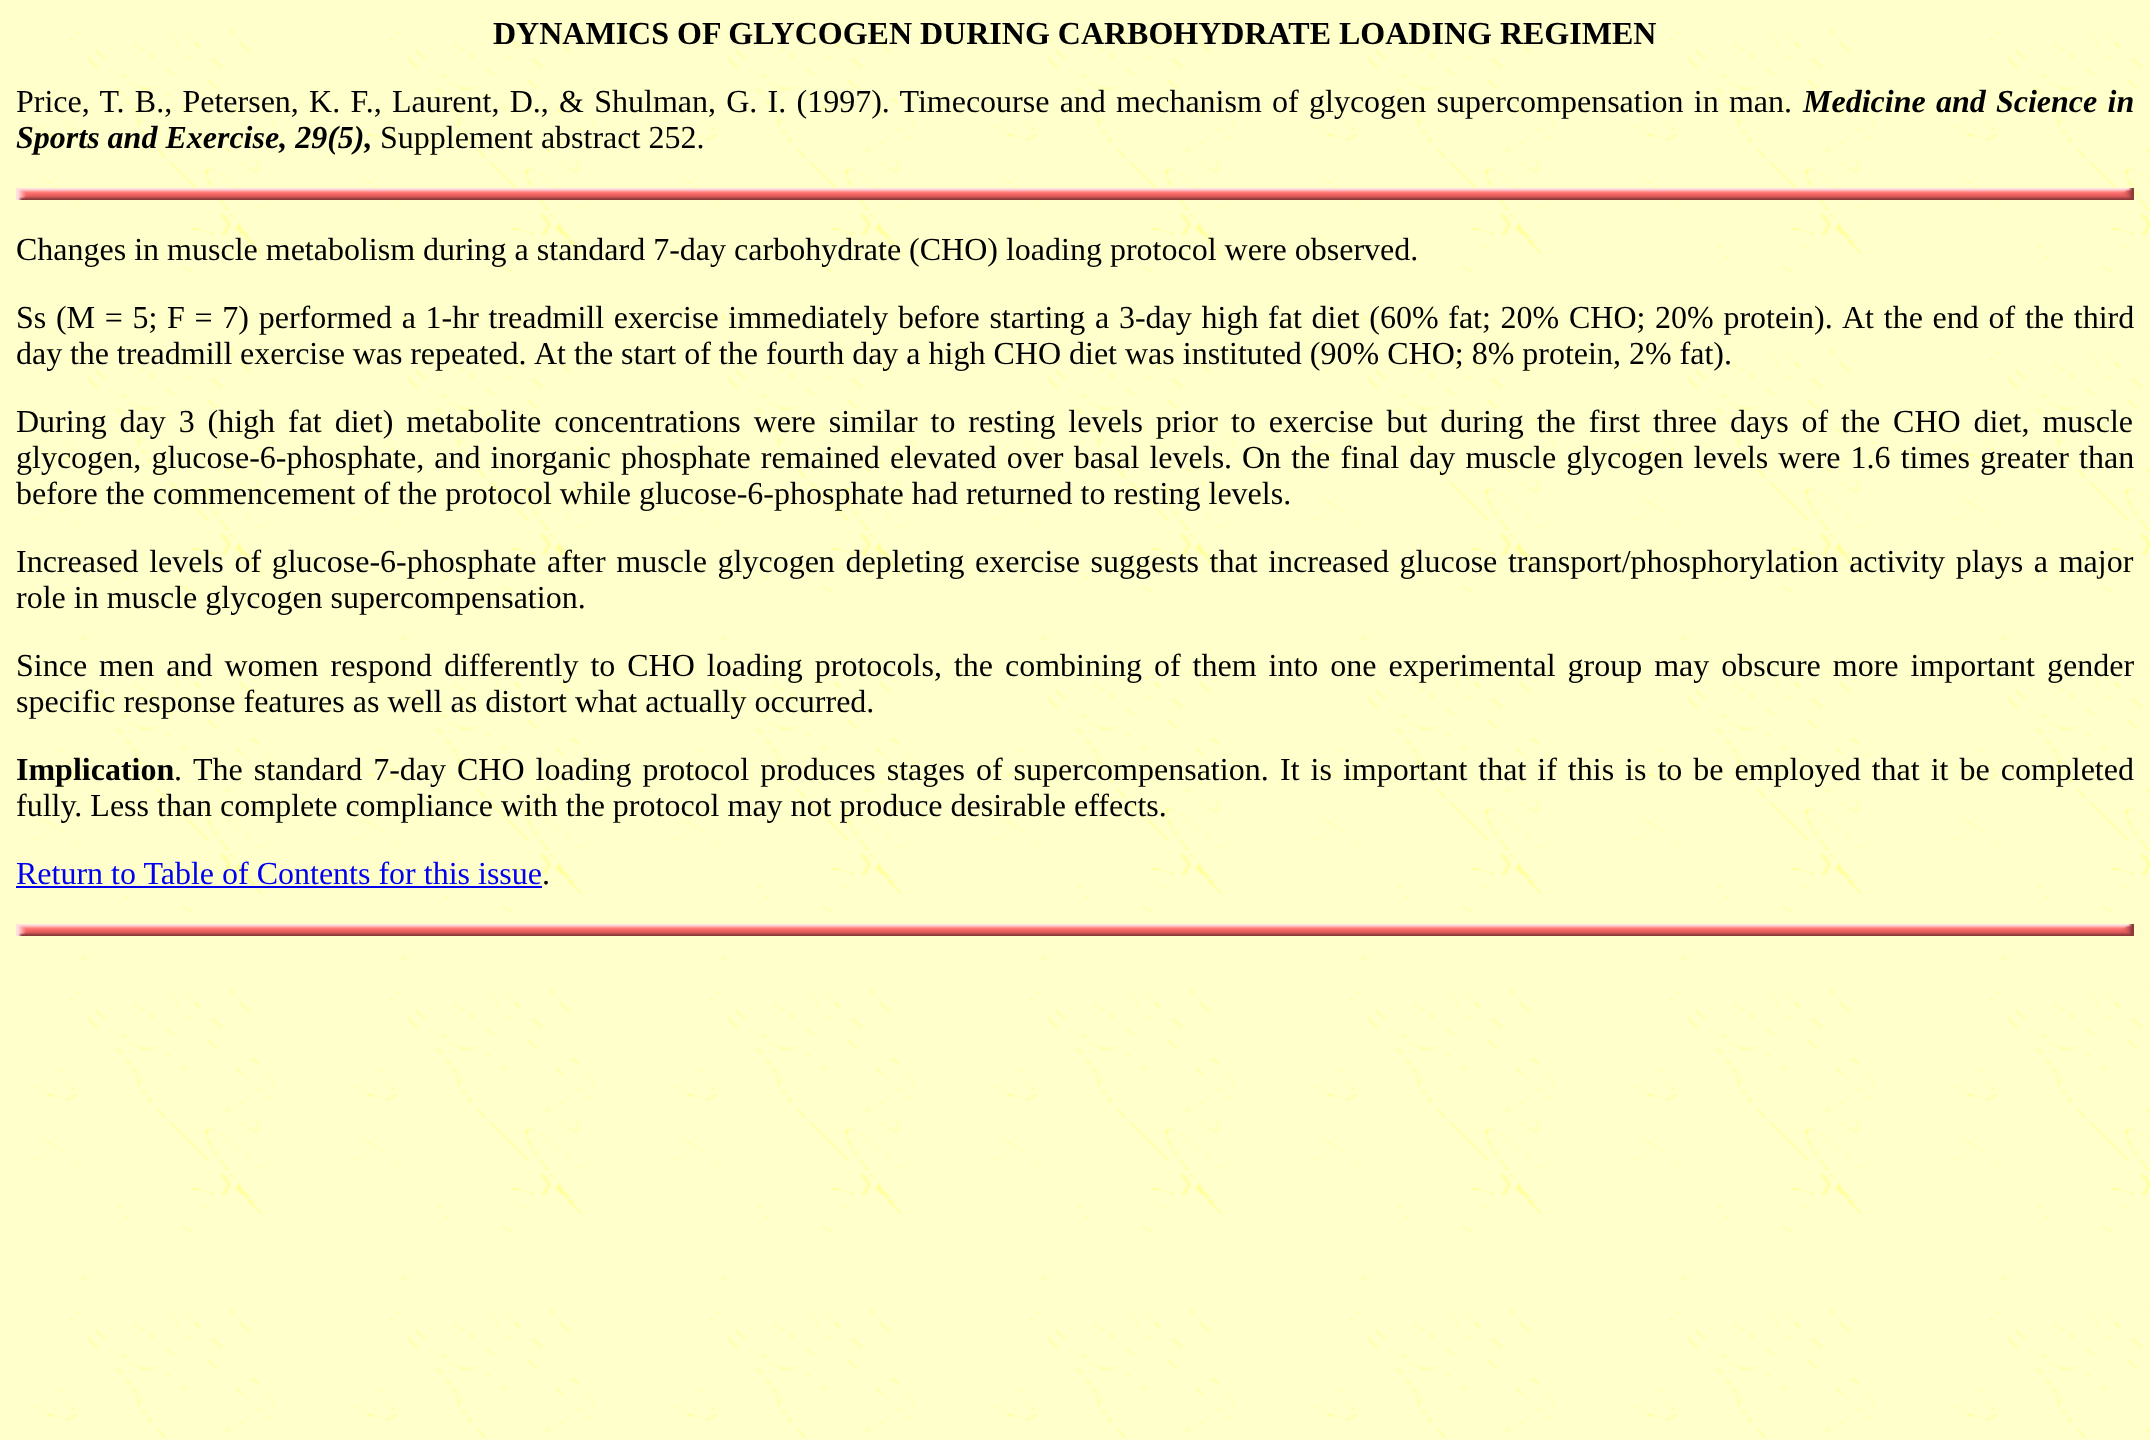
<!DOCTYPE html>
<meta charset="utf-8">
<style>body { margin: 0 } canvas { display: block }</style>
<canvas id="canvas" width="2150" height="1440"></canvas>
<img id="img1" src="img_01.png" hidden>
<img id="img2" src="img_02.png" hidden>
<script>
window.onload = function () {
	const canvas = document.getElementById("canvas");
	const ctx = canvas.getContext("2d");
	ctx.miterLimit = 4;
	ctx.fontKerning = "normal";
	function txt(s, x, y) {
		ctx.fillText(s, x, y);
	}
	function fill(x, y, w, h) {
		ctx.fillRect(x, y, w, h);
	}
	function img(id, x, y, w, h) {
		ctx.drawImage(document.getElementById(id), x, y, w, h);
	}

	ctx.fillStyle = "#FFFFFF";
	fill(0, 0, 2150, 1440);
	img("img1", 0, 0, 2150, 1440);
	img("img2", 16, 188, 2118, 12);
	ctx.fillStyle = "#0000EE";
	fill(16, 886, 526, 2);
	img("img2", 16, 924, 2118, 12);
	ctx.font = "bold 32px Liberation Serif";
	ctx.fillStyle = "#000000";
	txt("DYNAMICS OF GLYCOGEN DURING CARBOHYDRATE LOADING REGIMEN", 493, 44);
	ctx.wordSpacing = "2.25px";
	ctx.font = "32px Liberation Serif";
	txt("Price, T. B., Petersen, K. F., Laurent, D., & Shulman, G. I. (1997). Timecourse and mechanism of glycogen supercompensation in man.", 16, 112);
	ctx.font = "italic bold 32px Liberation Serif";
	txt("Medicine and Science in", 1803, 112);
	ctx.wordSpacing = "0px";
	txt("Sports and Exercise, 29(5),", 16, 148);
	ctx.font = "32px Liberation Serif";
	txt("Supplement abstract 252.", 380, 148);
	txt("Changes in muscle metabolism during a standard 7-day carbohydrate (CHO) loading protocol were observed.", 16, 260);
	ctx.wordSpacing = "1.7px";
	txt("Ss (M = 5; F = 7) performed a 1-hr treadmill exercise immediately before starting a 3-day high fat diet (60% fat; 20% CHO; 20% protein).", 16, 328);
	ctx.wordSpacing = "1.75px";
	txt("At the end of the third", 1842, 328);
	ctx.wordSpacing = "-0.25px";
	txt("day the treadmill exercise was repeated.", 16, 364);
	ctx.wordSpacing = "0px";
	txt("At the start of the fourth day a high CHO diet was instituted (90% CHO; 8% protein, 2% fat).", 534, 364);
	ctx.wordSpacing = "4.9px";
	txt("During day 3 (high fat diet) metabolite concentrations were similar to resting levels prior to exercise but during the first three days of the CHO diet, muscle", 16, 432);
	ctx.wordSpacing = "2.1px";
	txt("glycogen, glucose-6-phosphate, and inorganic phosphate remained elevated over basal levels.", 16, 468);
	txt("On the final day muscle glycogen levels were 1.6 times greater than", 1242, 468);
	ctx.wordSpacing = "0px";
	txt("before the commencement of the protocol while glucose-6-phosphate had returned to resting levels.", 16, 504);
	ctx.wordSpacing = "2.6px";
	txt("Increased levels of glucose-6-phosphate after muscle glycogen depleting exercise suggests that increased glucose transport/phosphorylation activity plays a major", 16, 572);
	ctx.wordSpacing = "0px";
	txt("role in muscle glycogen supercompensation.", 16, 608);
	ctx.wordSpacing = "4px";
	txt("Since men and women respond differently to CHO loading protocols, the combining of them into one experimental group may obscure more important gender", 16, 676);
	ctx.wordSpacing = "0px";
	txt("specific response features as well as distort what actually occurred.", 16, 712);
	ctx.font = "bold 32px Liberation Serif";
	txt("Implication", 16, 780);
	ctx.font = "32px Liberation Serif";
	txt(".", 174, 780);
	ctx.wordSpacing = "3px";
	txt("The standard 7-day CHO loading protocol produces stages of supercompensation.", 193, 780);
	txt("It is important that if this is to be employed that it be completed", 1280, 780);
	ctx.wordSpacing = "0px";
	txt("fully. Less than complete compliance with the protocol may not produce desirable effects.", 16, 816);
	ctx.fillStyle = "#0000EE";
	txt("Return to Table of Contents for this issue", 16, 884);
	ctx.fillStyle = "#000000";
	txt(".", 542, 884);
};
</script>
